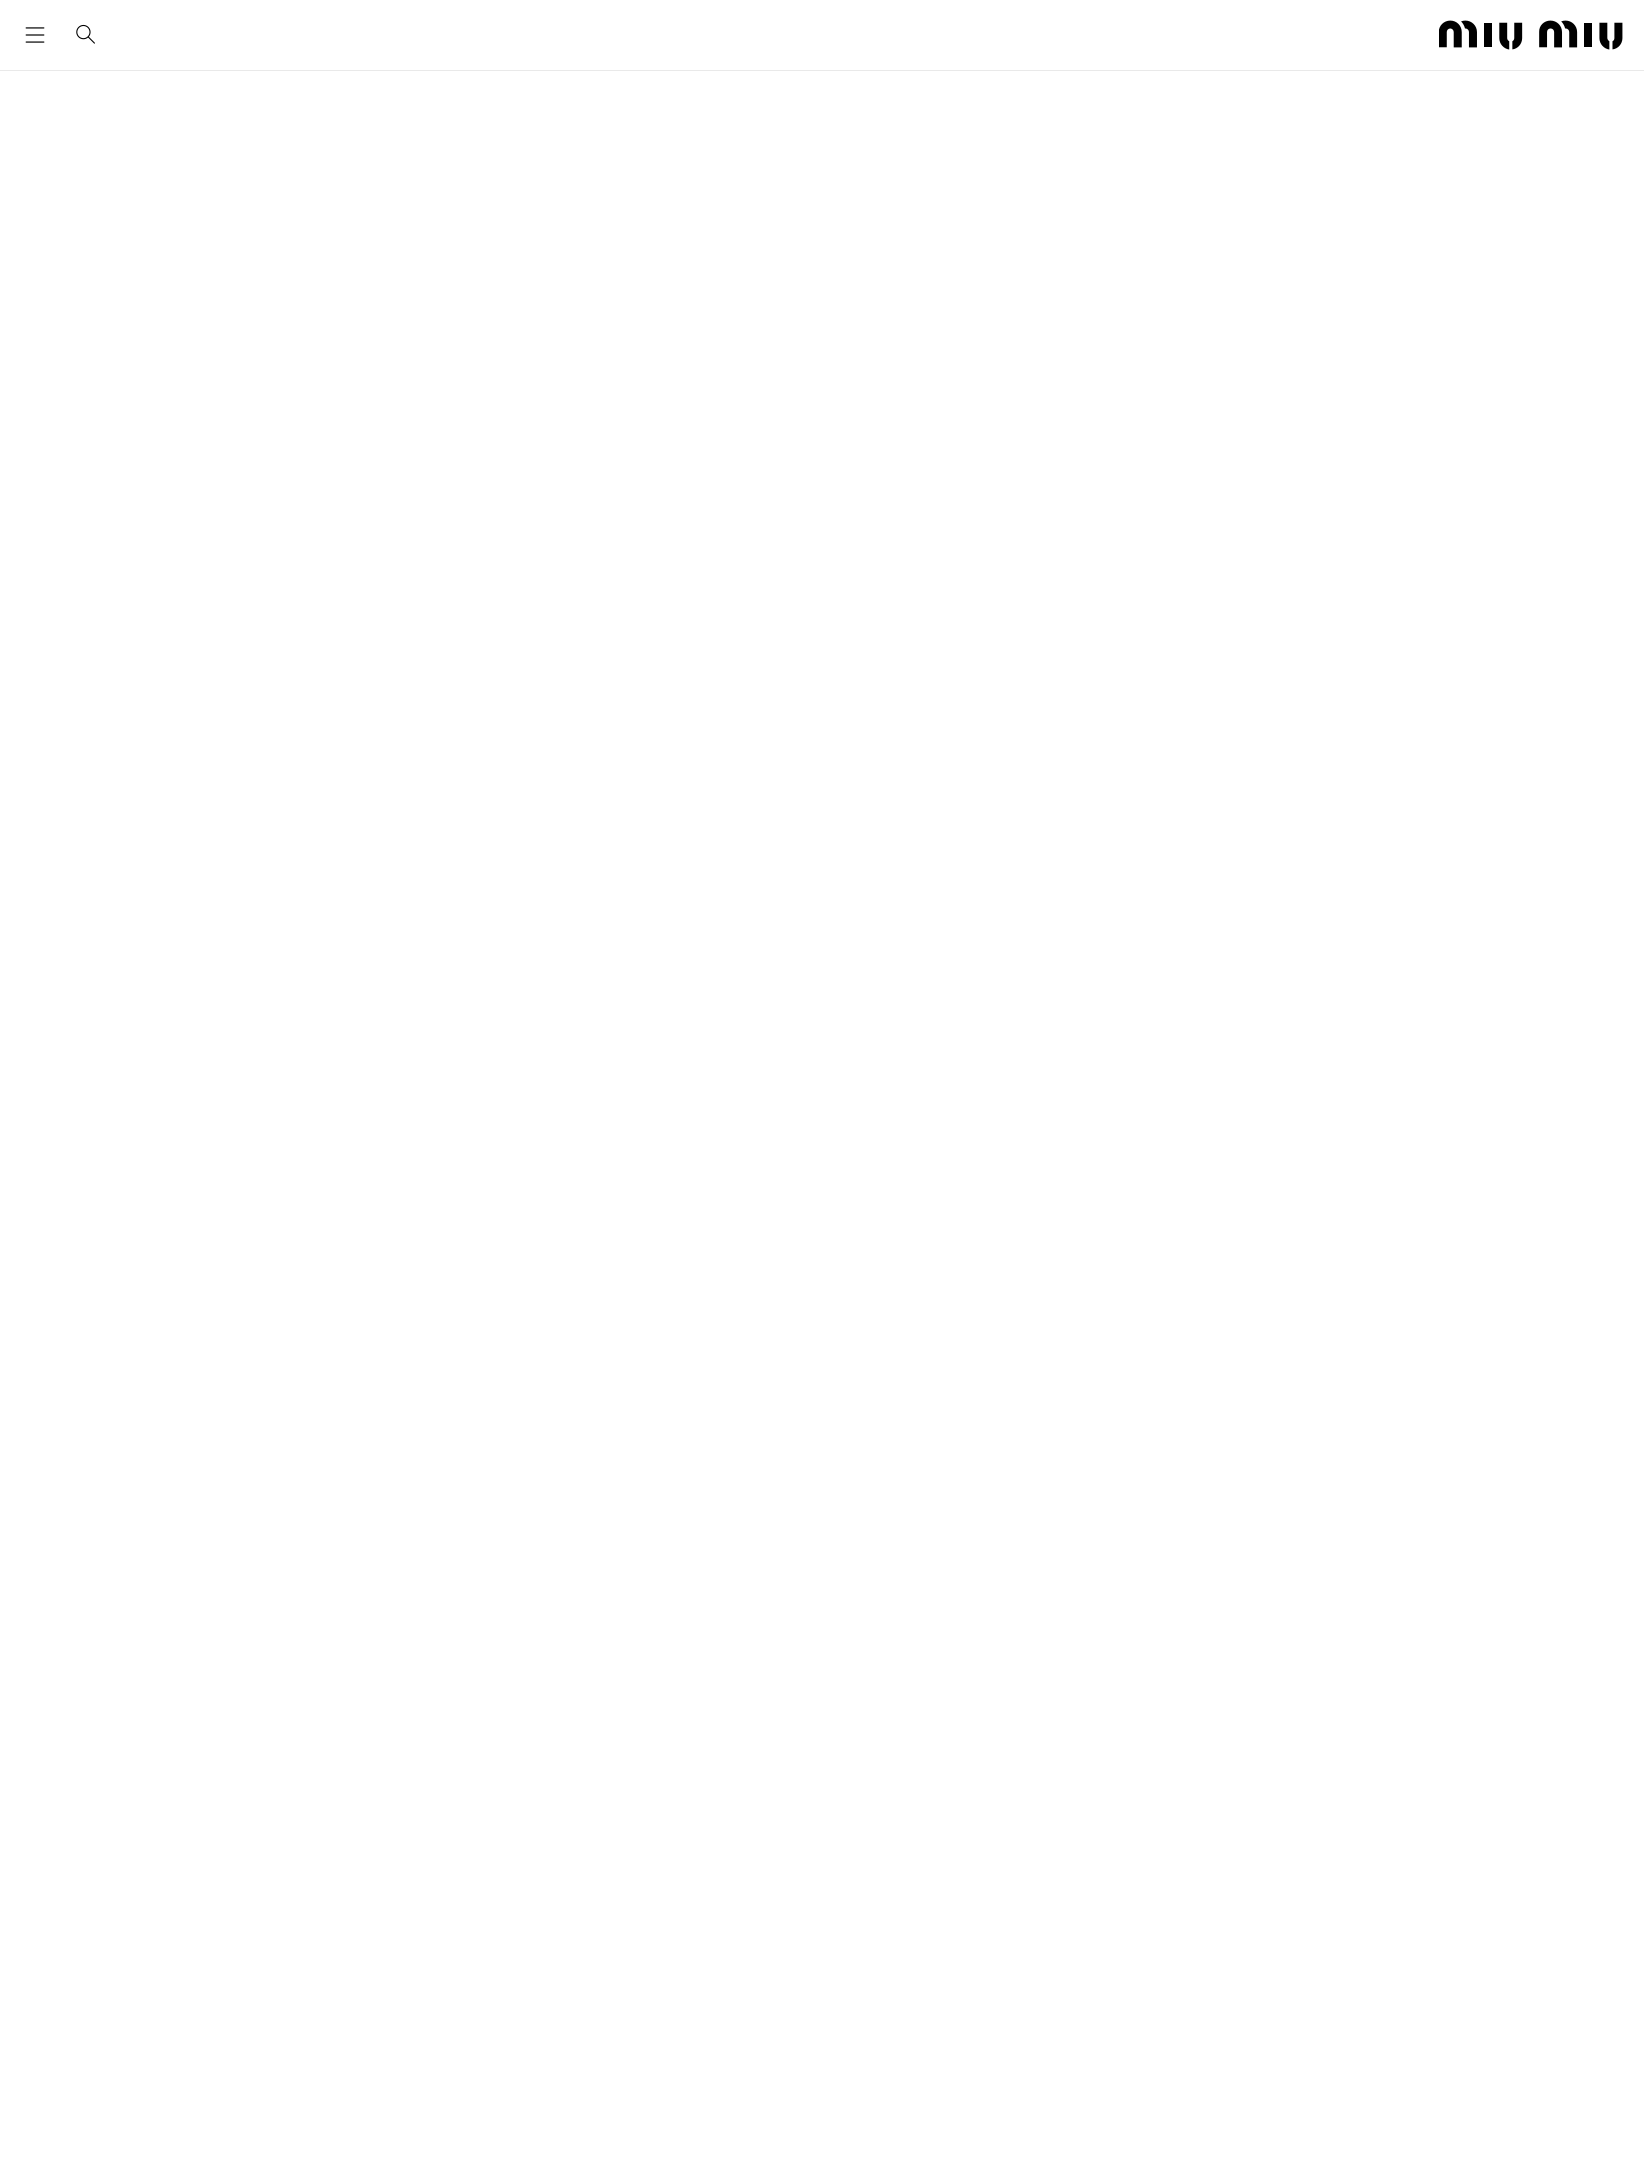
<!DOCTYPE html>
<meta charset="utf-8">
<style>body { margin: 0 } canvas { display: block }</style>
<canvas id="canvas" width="1644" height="2158"></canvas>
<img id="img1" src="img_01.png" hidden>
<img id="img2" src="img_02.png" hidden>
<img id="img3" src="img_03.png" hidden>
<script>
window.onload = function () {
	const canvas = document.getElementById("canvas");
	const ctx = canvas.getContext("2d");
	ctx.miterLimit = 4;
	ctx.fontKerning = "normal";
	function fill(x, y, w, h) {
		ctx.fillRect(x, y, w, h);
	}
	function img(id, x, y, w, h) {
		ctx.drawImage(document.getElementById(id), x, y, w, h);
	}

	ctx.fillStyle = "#FFFFFF";
	fill(0, 0, 1644, 2158);
	ctx.fillStyle = "#E9E9E9";
	fill(0, 70, 1644, 1);
	img("img1", 25, 27, 20, 16);
	img("img2", 76, 24, 19, 20);
	img("img3", 1439, 20, 184, 30);
};
</script>
